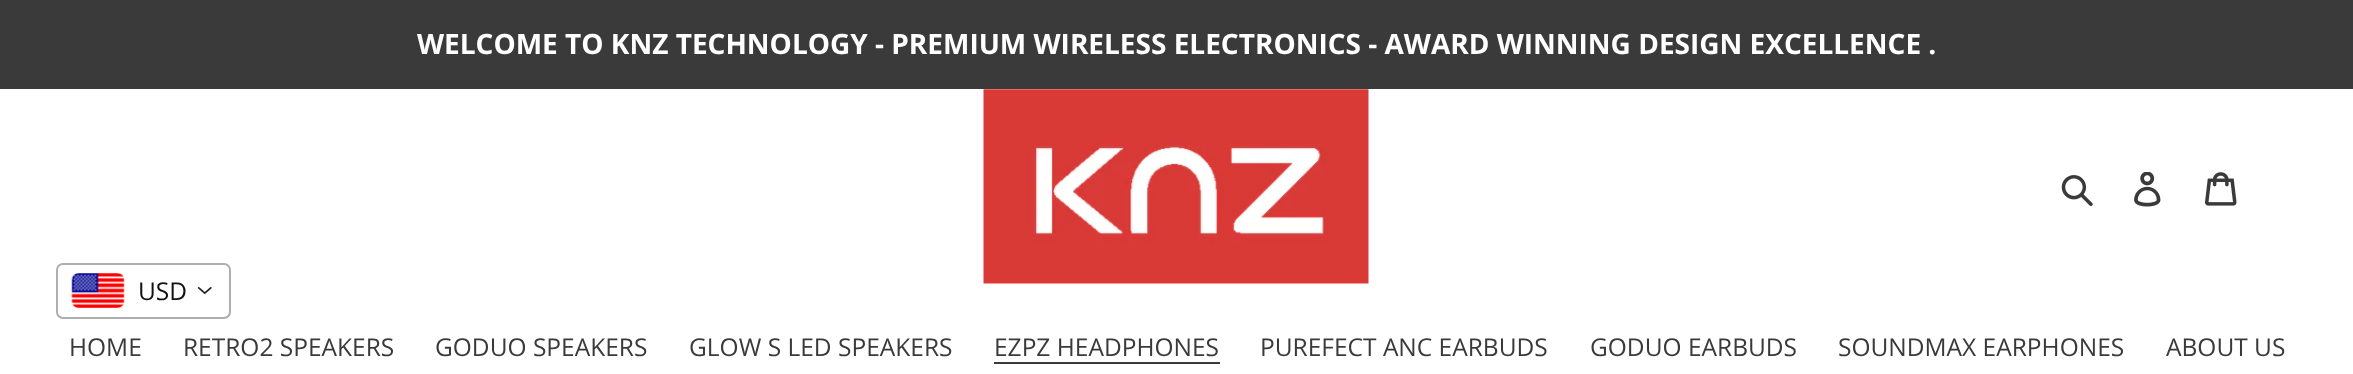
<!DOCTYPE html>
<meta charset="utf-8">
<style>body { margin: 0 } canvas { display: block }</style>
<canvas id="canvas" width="2353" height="374"></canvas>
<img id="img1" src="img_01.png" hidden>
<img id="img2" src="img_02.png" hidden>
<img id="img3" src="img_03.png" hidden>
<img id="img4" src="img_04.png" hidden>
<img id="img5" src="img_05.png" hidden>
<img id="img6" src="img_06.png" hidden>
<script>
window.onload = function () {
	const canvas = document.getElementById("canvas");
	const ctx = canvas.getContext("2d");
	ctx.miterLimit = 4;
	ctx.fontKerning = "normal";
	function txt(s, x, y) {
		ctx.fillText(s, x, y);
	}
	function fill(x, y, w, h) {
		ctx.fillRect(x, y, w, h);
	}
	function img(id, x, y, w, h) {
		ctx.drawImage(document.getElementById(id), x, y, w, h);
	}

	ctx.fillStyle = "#FFFFFF";
	fill(0, 0, 2353, 374);
	ctx.fillStyle = "#3A3A3A";
	fill(0, 0, 2353, 89);
	img("img1", 983, 89, 386, 195);
	img("img2", 2061, 175, 32, 31);
	img("img3", 2134, 172, 27, 35);
	img("img4", 2205, 172, 32, 34);
	fill(994, 362, 226, 2);
	ctx.beginPath();
	ctx.roundRect(57, 264, 173, 54, 6);
	ctx.strokeStyle = "#AEAEAE";
	ctx.lineWidth = 2;
	ctx.stroke();
	img("img5", 71, 273, 54, 35);
	img("img6", 197, 287, 15, 7);
	ctx.font = "bold 28px Open Sans";
	ctx.fillStyle = "#FFFFFF";
	txt("WELCOME TO KNZ TECHNOLOGY - PREMIUM WIRELESS ELECTRONICS - AWARD WINNING DESIGN EXCELLENCE .", 417, 54);
	ctx.font = "24.5px Open Sans";
	ctx.fillStyle = "#3A3A3A";
	txt("HOME", 69, 356);
	txt("RETRO2 SPEAKERS", 183, 356);
	txt("GODUO SPEAKERS", 435, 356);
	txt("GLOW S LED SPEAKERS", 689, 356);
	txt("EZPZ HEADPHONES", 994, 356);
	txt("PUREFECT ANC EARBUDS", 1260, 356);
	txt("GODUO EARBUDS", 1590, 356);
	txt("SOUNDMAX EARPHONES", 1838, 356);
	txt("ABOUT US", 2166, 356);
	ctx.fillStyle = "#111111";
	txt("USD", 138, 300);
};
</script>
